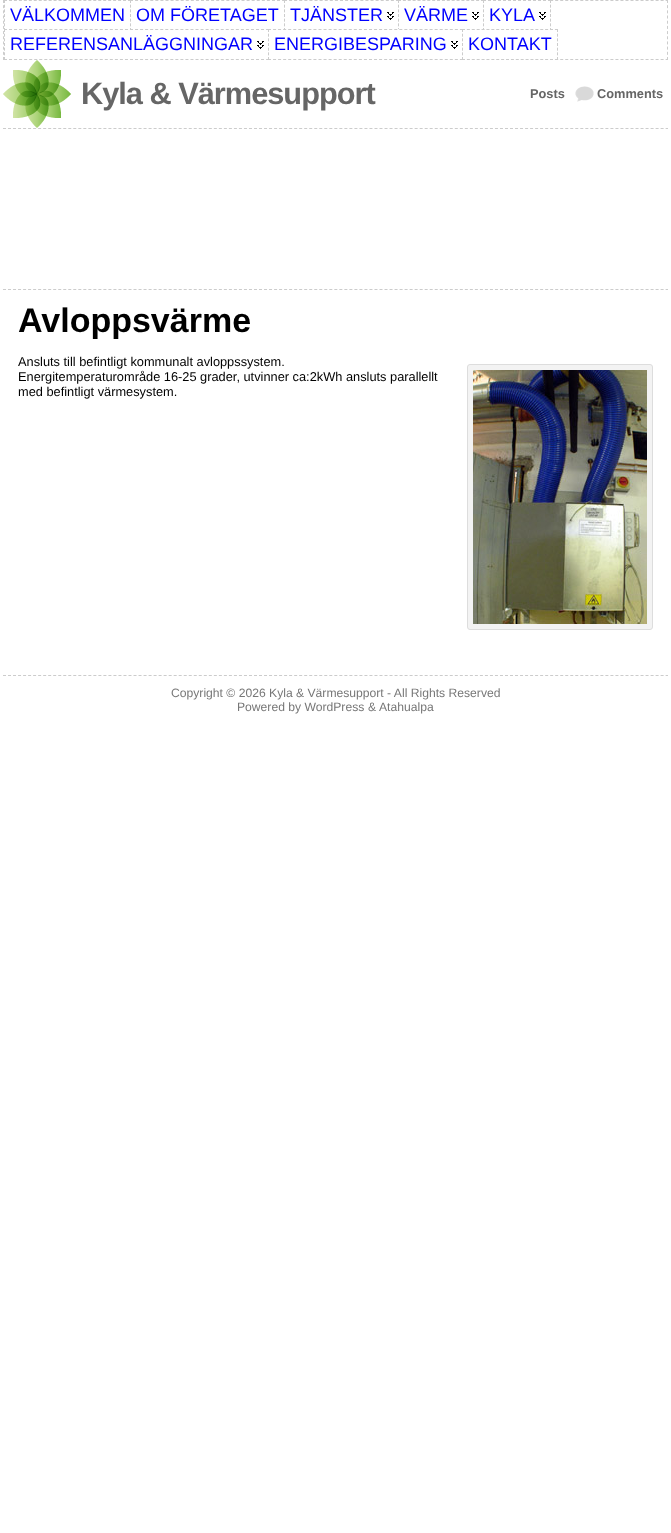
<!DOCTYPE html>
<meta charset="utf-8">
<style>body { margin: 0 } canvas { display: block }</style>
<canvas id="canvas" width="671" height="1533"></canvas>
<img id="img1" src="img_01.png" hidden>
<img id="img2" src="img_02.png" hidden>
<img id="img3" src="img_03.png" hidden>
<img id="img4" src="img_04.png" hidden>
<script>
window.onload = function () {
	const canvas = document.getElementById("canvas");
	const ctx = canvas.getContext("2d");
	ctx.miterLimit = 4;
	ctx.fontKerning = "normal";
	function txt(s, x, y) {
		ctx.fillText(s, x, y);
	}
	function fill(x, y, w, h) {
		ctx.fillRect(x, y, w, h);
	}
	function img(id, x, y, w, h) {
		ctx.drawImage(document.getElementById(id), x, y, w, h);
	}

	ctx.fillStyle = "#FFFFFF";
	fill(0, 0, 671, 1533);
	ctx.beginPath();
	ctx.moveTo(3, 0.5);
	ctx.lineTo(668, 0.5);
	ctx.strokeStyle = "#CCCCCC";
	ctx.setLineDash([3, 2.02]);
	ctx.stroke();
	ctx.beginPath();
	ctx.moveTo(667.5, 0);
	ctx.lineTo(667.5, 60);
	ctx.setLineDash([3, 2.18]);
	ctx.stroke();
	ctx.beginPath();
	ctx.moveTo(3, 59.5);
	ctx.lineTo(668, 59.5);
	ctx.setLineDash([3, 2.02]);
	ctx.stroke();
	ctx.beginPath();
	ctx.moveTo(3.5, 0);
	ctx.lineTo(3.5, 60);
	ctx.setLineDash([3, 2.18]);
	ctx.stroke();
	fill(4, 0, 126, 1);
	ctx.beginPath();
	ctx.moveTo(4, 0.5);
	ctx.lineTo(131, 0.5);
	ctx.setLineDash([3, 1.96]);
	ctx.stroke();
	ctx.beginPath();
	ctx.moveTo(4.5, 0);
	ctx.lineTo(4.5, 31);
	ctx.setLineDash([3, 1.67]);
	ctx.stroke();
	fill(130, 0, 153, 1);
	ctx.beginPath();
	ctx.moveTo(130, 0.5);
	ctx.lineTo(285, 0.5);
	ctx.setLineDash([3, 2.07]);
	ctx.stroke();
	ctx.beginPath();
	ctx.moveTo(130.5, 0);
	ctx.lineTo(130.5, 31);
	ctx.setLineDash([3, 1.67]);
	ctx.stroke();
	fill(284, 0, 114, 1);
	img("img1", 387, 12, 7, 8);
	ctx.beginPath();
	ctx.moveTo(284, 0.5);
	ctx.lineTo(399, 0.5);
	ctx.setLineDash([3, 2.09]);
	ctx.stroke();
	ctx.beginPath();
	ctx.moveTo(284.5, 0);
	ctx.lineTo(284.5, 31);
	ctx.setLineDash([3, 1.67]);
	ctx.stroke();
	fill(398, 0, 85, 1);
	img("img1", 472, 12, 7, 8);
	ctx.beginPath();
	ctx.moveTo(398, 0.5);
	ctx.lineTo(484, 0.5);
	ctx.setLineDash([3, 1.88]);
	ctx.stroke();
	ctx.beginPath();
	ctx.moveTo(398.5, 0);
	ctx.lineTo(398.5, 31);
	ctx.setLineDash([3, 1.67]);
	ctx.stroke();
	fill(483, 0, 68, 1);
	img("img1", 539, 12, 7, 8);
	ctx.beginPath();
	ctx.moveTo(483, 0.5);
	ctx.lineTo(551, 0.5);
	ctx.setLineDash([3, 2]);
	ctx.stroke();
	ctx.beginPath();
	ctx.moveTo(550.5, 0);
	ctx.lineTo(550.5, 31);
	ctx.setLineDash([3, 1.67]);
	ctx.stroke();
	ctx.beginPath();
	ctx.moveTo(483.5, 0);
	ctx.lineTo(483.5, 31);
	ctx.stroke();
	fill(4, 29, 263, 31);
	img("img1", 257, 41, 7, 8);
	ctx.beginPath();
	ctx.moveTo(4, 29.5);
	ctx.lineTo(269, 29.5);
	ctx.setLineDash([3, 2.04]);
	ctx.stroke();
	ctx.beginPath();
	ctx.moveTo(4, 59.5);
	ctx.lineTo(269, 59.5);
	ctx.stroke();
	ctx.beginPath();
	ctx.moveTo(4.5, 29);
	ctx.lineTo(4.5, 60);
	ctx.setLineDash([3, 1.67]);
	ctx.stroke();
	fill(268, 29, 194, 31);
	img("img1", 451, 41, 7, 8);
	ctx.beginPath();
	ctx.moveTo(268, 29.5);
	ctx.lineTo(463, 29.5);
	ctx.setLineDash([3, 2.05]);
	ctx.stroke();
	ctx.beginPath();
	ctx.moveTo(268, 59.5);
	ctx.lineTo(463, 59.5);
	ctx.stroke();
	ctx.beginPath();
	ctx.moveTo(268.5, 29);
	ctx.lineTo(268.5, 60);
	ctx.setLineDash([3, 1.67]);
	ctx.stroke();
	fill(462, 29, 96, 31);
	ctx.beginPath();
	ctx.moveTo(462, 29.5);
	ctx.lineTo(558, 29.5);
	ctx.setLineDash([3, 1.89]);
	ctx.stroke();
	ctx.beginPath();
	ctx.moveTo(557.5, 29);
	ctx.lineTo(557.5, 60);
	ctx.setLineDash([3, 1.67]);
	ctx.stroke();
	ctx.beginPath();
	ctx.moveTo(462, 59.5);
	ctx.lineTo(558, 59.5);
	ctx.setLineDash([3, 1.89]);
	ctx.stroke();
	ctx.beginPath();
	ctx.moveTo(462.5, 29);
	ctx.lineTo(462.5, 60);
	ctx.setLineDash([3, 1.67]);
	ctx.stroke();
	img("img2", 3, 60, 68, 68);
	img("img3", 575, 86, 19, 16);
	ctx.beginPath();
	ctx.moveTo(3, 128.5);
	ctx.lineTo(668, 128.5);
	ctx.setLineDash([3, 2.02]);
	ctx.stroke();
	ctx.beginPath();
	ctx.moveTo(3, 289.5);
	ctx.lineTo(668, 289.5);
	ctx.stroke();
	ctx.fillStyle = "#F3F3F3";
	ctx.beginPath();
	ctx.roundRect(467.5, 364.5, 185, 265, 2.5);
	ctx.fill();
	ctx.strokeStyle = "#DDDDDD";
	ctx.setLineDash([]);
	ctx.stroke();
	img("img4", 473, 370, 174, 254);
	ctx.beginPath();
	ctx.moveTo(3, 675.5);
	ctx.lineTo(668, 675.5);
	ctx.strokeStyle = "#CCCCCC";
	ctx.setLineDash([3, 2.02]);
	ctx.stroke();
	ctx.font = "18px Liberation Sans";
	ctx.fillStyle = "#0000FF";
	txt("VÄLKOMMEN", 10, 21);
	txt("OM FÖRETAGET", 136, 21);
	txt("TJÄNSTER", 290, 21);
	txt("VÄRME", 404, 21);
	txt("KYLA", 489, 21);
	txt("REFERENSANLÄGGNINGAR", 10, 50);
	txt("ENERGIBESPARING", 274, 50);
	txt("KONTAKT", 468, 50);
	ctx.letterSpacing = "-1px";
	ctx.font = "bold 30.75px Liberation Sans";
	ctx.fillStyle = "#666666";
	txt("Kyla & Värmesupport", 81, 104);
	ctx.letterSpacing = "0px";
	ctx.font = "bold 12.8px Liberation Sans";
	txt("Posts", 530, 98);
	txt("Comments", 597, 98);
	ctx.font = "bold 34px Liberation Sans";
	ctx.fillStyle = "#000000";
	txt("Avloppsvärme", 18, 332);
	ctx.font = "12.8px Liberation Sans";
	txt("Ansluts till befintligt kommunalt avloppssystem.", 18, 366);
	txt("Energitemperaturområde 16-25 grader, utvinner ca:2kWh ansluts parallellt", 18, 381);
	txt("med befintligt värmesystem.", 18, 396);
	ctx.font = "12.15px Liberation Sans";
	ctx.fillStyle = "#777777";
	txt("Copyright © 2026 Kyla & Värmesupport - All Rights Reserved", 171, 697);
	txt("Powered by WordPress", 237, 711);
	txt("&", 368, 711);
	txt("Atahualpa", 379, 711);
};
</script>
